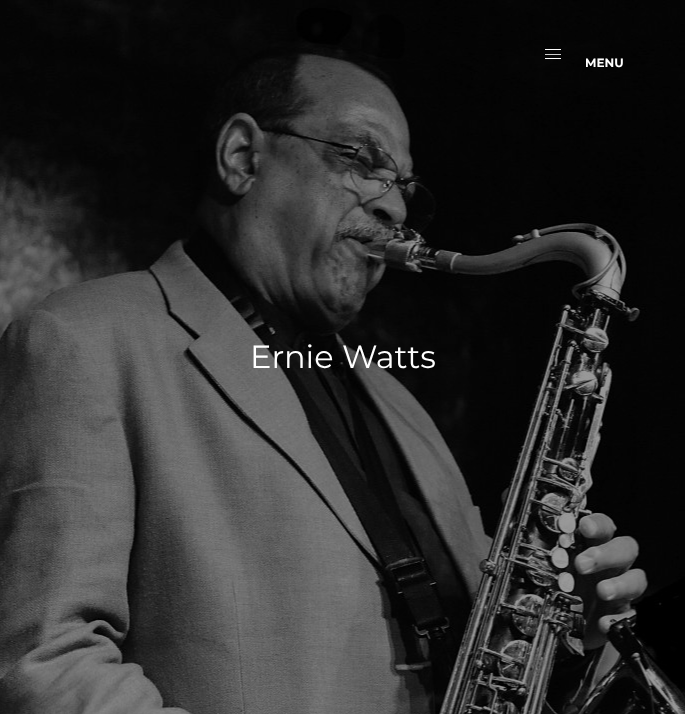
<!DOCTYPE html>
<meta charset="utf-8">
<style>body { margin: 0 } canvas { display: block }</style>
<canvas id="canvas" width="685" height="714"></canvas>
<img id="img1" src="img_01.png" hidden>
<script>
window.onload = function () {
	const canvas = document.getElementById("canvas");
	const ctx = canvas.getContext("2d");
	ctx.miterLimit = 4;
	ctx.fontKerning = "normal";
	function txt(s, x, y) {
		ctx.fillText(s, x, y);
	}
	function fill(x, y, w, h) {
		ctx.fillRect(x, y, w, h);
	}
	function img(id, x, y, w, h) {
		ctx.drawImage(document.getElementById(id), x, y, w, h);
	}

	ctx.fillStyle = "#FFFFFF";
	fill(0, 0, 685, 714);
	img("img1", 0, 0, 685, 714);
	fill(545, 49, 16, 1);
	ctx.fillStyle = "#CDCDCD";
	fill(545, 54, 16, 1);
	ctx.fillStyle = "#FFFFFF";
	fill(545, 58, 16, 1);
	ctx.font = "bold 12px Montserrat";
	txt("MENU", 585, 67);
	ctx.font = "32px Montserrat";
	txt("Ernie Watts", 250, 368);
};
</script>
